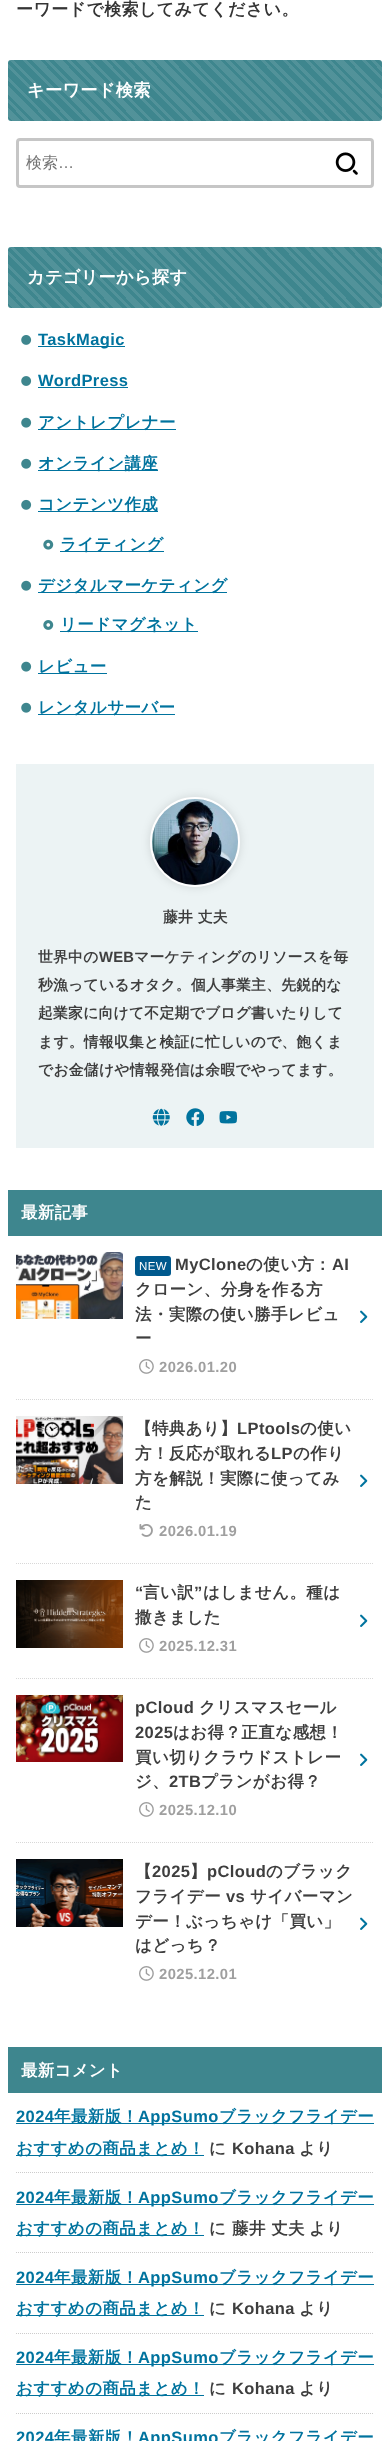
<!DOCTYPE html>
<meta charset="utf-8">
<style>body { margin: 0 } canvas { display: block }</style>
<canvas id="canvas" width="390" height="2441"></canvas>
<img id="img1" src="img_01.png" hidden>
<img id="img2" src="img_02.png" hidden>
<img id="img3" src="img_03.png" hidden>
<img id="img4" src="img_04.png" hidden>
<img id="img5" src="img_05.png" hidden>
<img id="img6" src="img_06.png" hidden>
<img id="img7" src="img_07.png" hidden>
<img id="img8" src="img_08.png" hidden>
<img id="img9" src="img_09.png" hidden>
<img id="img10" src="img_10.png" hidden>
<img id="img11" src="img_11.png" hidden>
<img id="img12" src="img_12.png" hidden>
<img id="img13" src="img_13.png" hidden>
<img id="img14" src="img_14.png" hidden>
<img id="img15" src="img_15.png" hidden>
<img id="img16" src="img_16.png" hidden>
<img id="img17" src="img_17.png" hidden>
<img id="img18" src="img_18.png" hidden>
<img id="img19" src="img_19.png" hidden>
<img id="img20" src="img_20.png" hidden>
<img id="img21" src="img_21.png" hidden>
<img id="img22" src="img_22.png" hidden>
<img id="img23" src="img_23.png" hidden>
<script>
window.onload = function () {
	const canvas = document.getElementById("canvas");
	const ctx = canvas.getContext("2d");
	ctx.miterLimit = 4;
	ctx.fontKerning = "normal";
	function txt(s, x, y) {
		ctx.fillText(s, x, y);
	}
	function fill(x, y, w, h) {
		ctx.fillRect(x, y, w, h);
	}
	function round(x, y, w, h, r) {
		ctx.beginPath();
		ctx.roundRect(x, y, w, h, r);
		ctx.fill();
	}
	function img(id, x, y, w, h) {
		ctx.drawImage(document.getElementById(id), x, y, w, h);
	}
	let gradient;

	ctx.fillStyle = "#FFFFFF";
	fill(0, 0, 390, 2441);
	ctx.fillStyle = "#3E868E";
	round(8, 60, 374, 61, 3);
	gradient = ctx.createLinearGradient(86, 199, 307, -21);
	gradient.addColorStop(0, "rgba(0, 0, 0, 0)");
	gradient.addColorStop(0.01, "rgba(255, 255, 255, 0)");
	gradient.addColorStop(0.01, "rgba(255, 255, 255, 0.1)");
	gradient.addColorStop(0.03, "rgba(255, 255, 255, 0.1)");
	gradient.addColorStop(0.03, "rgba(255, 255, 255, 0)");
	gradient.addColorStop(0.04, "rgba(255, 255, 255, 0)");
	gradient.addColorStop(0.04, "rgba(255, 255, 255, 0.1)");
	gradient.addColorStop(0.05, "rgba(255, 255, 255, 0.1)");
	gradient.addColorStop(0.05, "rgba(255, 255, 255, 0)");
	gradient.addColorStop(0.06, "rgba(255, 255, 255, 0)");
	gradient.addColorStop(0.06, "rgba(255, 255, 255, 0.1)");
	gradient.addColorStop(0.08, "rgba(255, 255, 255, 0.1)");
	gradient.addColorStop(0.08, "rgba(255, 255, 255, 0)");
	gradient.addColorStop(0.09, "rgba(255, 255, 255, 0)");
	gradient.addColorStop(0.09, "rgba(255, 255, 255, 0.1)");
	gradient.addColorStop(0.1, "rgba(255, 255, 255, 0.1)");
	gradient.addColorStop(0.1, "rgba(255, 255, 255, 0)");
	gradient.addColorStop(0.12, "rgba(255, 255, 255, 0)");
	gradient.addColorStop(0.12, "rgba(255, 255, 255, 0.1)");
	gradient.addColorStop(0.13, "rgba(255, 255, 255, 0.1)");
	gradient.addColorStop(0.13, "rgba(255, 255, 255, 0)");
	gradient.addColorStop(0.14, "rgba(255, 255, 255, 0)");
	gradient.addColorStop(0.14, "rgba(255, 255, 255, 0.1)");
	gradient.addColorStop(0.15, "rgba(255, 255, 255, 0.1)");
	gradient.addColorStop(0.15, "rgba(255, 255, 255, 0)");
	gradient.addColorStop(0.17, "rgba(255, 255, 255, 0)");
	gradient.addColorStop(0.17, "rgba(255, 255, 255, 0.1)");
	gradient.addColorStop(0.18, "rgba(255, 255, 255, 0.1)");
	gradient.addColorStop(0.18, "rgba(255, 255, 255, 0)");
	gradient.addColorStop(0.19, "rgba(255, 255, 255, 0)");
	gradient.addColorStop(0.19, "rgba(255, 255, 255, 0.1)");
	gradient.addColorStop(0.21, "rgba(255, 255, 255, 0.1)");
	gradient.addColorStop(0.21, "rgba(255, 255, 255, 0)");
	gradient.addColorStop(0.22, "rgba(255, 255, 255, 0)");
	gradient.addColorStop(0.22, "rgba(255, 255, 255, 0.1)");
	gradient.addColorStop(0.23, "rgba(255, 255, 255, 0.1)");
	gradient.addColorStop(0.23, "rgba(255, 255, 255, 0)");
	gradient.addColorStop(0.24, "rgba(255, 255, 255, 0)");
	gradient.addColorStop(0.24, "rgba(255, 255, 255, 0.1)");
	gradient.addColorStop(0.26, "rgba(255, 255, 255, 0.1)");
	gradient.addColorStop(0.26, "rgba(255, 255, 255, 0)");
	gradient.addColorStop(0.27, "rgba(255, 255, 255, 0)");
	gradient.addColorStop(0.27, "rgba(255, 255, 255, 0.1)");
	gradient.addColorStop(0.28, "rgba(255, 255, 255, 0.1)");
	gradient.addColorStop(0.28, "rgba(255, 255, 255, 0)");
	gradient.addColorStop(0.29, "rgba(255, 255, 255, 0)");
	gradient.addColorStop(0.29, "rgba(255, 255, 255, 0.1)");
	gradient.addColorStop(0.31, "rgba(255, 255, 255, 0.1)");
	gradient.addColorStop(0.31, "rgba(255, 255, 255, 0)");
	gradient.addColorStop(0.32, "rgba(255, 255, 255, 0)");
	gradient.addColorStop(0.32, "rgba(255, 255, 255, 0.1)");
	gradient.addColorStop(0.33, "rgba(255, 255, 255, 0.1)");
	gradient.addColorStop(0.33, "rgba(255, 255, 255, 0)");
	gradient.addColorStop(0.35, "rgba(255, 255, 255, 0)");
	gradient.addColorStop(0.35, "rgba(255, 255, 255, 0.1)");
	gradient.addColorStop(0.36, "rgba(255, 255, 255, 0.1)");
	gradient.addColorStop(0.36, "rgba(255, 255, 255, 0)");
	gradient.addColorStop(0.37, "rgba(255, 255, 255, 0)");
	gradient.addColorStop(0.37, "rgba(255, 255, 255, 0.1)");
	gradient.addColorStop(0.38, "rgba(255, 255, 255, 0.1)");
	gradient.addColorStop(0.38, "rgba(255, 255, 255, 0)");
	gradient.addColorStop(0.4, "rgba(255, 255, 255, 0)");
	gradient.addColorStop(0.4, "rgba(255, 255, 255, 0.1)");
	gradient.addColorStop(0.41, "rgba(255, 255, 255, 0.1)");
	gradient.addColorStop(0.41, "rgba(255, 255, 255, 0)");
	gradient.addColorStop(0.42, "rgba(255, 255, 255, 0)");
	gradient.addColorStop(0.42, "rgba(255, 255, 255, 0.1)");
	gradient.addColorStop(0.44, "rgba(255, 255, 255, 0.1)");
	gradient.addColorStop(0.44, "rgba(255, 255, 255, 0)");
	gradient.addColorStop(0.45, "rgba(255, 255, 255, 0)");
	gradient.addColorStop(0.45, "rgba(255, 255, 255, 0.1)");
	gradient.addColorStop(0.46, "rgba(255, 255, 255, 0.1)");
	gradient.addColorStop(0.46, "rgba(255, 255, 255, 0)");
	gradient.addColorStop(0.47, "rgba(255, 255, 255, 0)");
	gradient.addColorStop(0.47, "rgba(255, 255, 255, 0.1)");
	gradient.addColorStop(0.49, "rgba(255, 255, 255, 0.1)");
	gradient.addColorStop(0.49, "rgba(255, 255, 255, 0)");
	gradient.addColorStop(0.5, "rgba(255, 255, 255, 0)");
	gradient.addColorStop(0.5, "rgba(255, 255, 255, 0.1)");
	gradient.addColorStop(0.51, "rgba(255, 255, 255, 0.1)");
	gradient.addColorStop(0.51, "rgba(255, 255, 255, 0)");
	gradient.addColorStop(0.53, "rgba(255, 255, 255, 0)");
	gradient.addColorStop(0.53, "rgba(255, 255, 255, 0.1)");
	gradient.addColorStop(0.54, "rgba(255, 255, 255, 0.1)");
	gradient.addColorStop(0.54, "rgba(255, 255, 255, 0)");
	gradient.addColorStop(0.55, "rgba(255, 255, 255, 0)");
	gradient.addColorStop(0.55, "rgba(255, 255, 255, 0.1)");
	gradient.addColorStop(0.56, "rgba(255, 255, 255, 0.1)");
	gradient.addColorStop(0.56, "rgba(255, 255, 255, 0)");
	gradient.addColorStop(0.58, "rgba(255, 255, 255, 0)");
	gradient.addColorStop(0.58, "rgba(255, 255, 255, 0.1)");
	gradient.addColorStop(0.59, "rgba(255, 255, 255, 0.1)");
	gradient.addColorStop(0.59, "rgba(255, 255, 255, 0)");
	gradient.addColorStop(0.6, "rgba(255, 255, 255, 0)");
	gradient.addColorStop(0.6, "rgba(255, 255, 255, 0.1)");
	gradient.addColorStop(0.62, "rgba(255, 255, 255, 0.1)");
	gradient.addColorStop(0.62, "rgba(255, 255, 255, 0)");
	gradient.addColorStop(0.63, "rgba(255, 255, 255, 0)");
	gradient.addColorStop(0.63, "rgba(255, 255, 255, 0.1)");
	gradient.addColorStop(0.64, "rgba(255, 255, 255, 0.1)");
	gradient.addColorStop(0.64, "rgba(255, 255, 255, 0)");
	gradient.addColorStop(0.65, "rgba(255, 255, 255, 0)");
	gradient.addColorStop(0.65, "rgba(255, 255, 255, 0.1)");
	gradient.addColorStop(0.67, "rgba(255, 255, 255, 0.1)");
	gradient.addColorStop(0.67, "rgba(255, 255, 255, 0)");
	gradient.addColorStop(0.68, "rgba(255, 255, 255, 0)");
	gradient.addColorStop(0.68, "rgba(255, 255, 255, 0.1)");
	gradient.addColorStop(0.69, "rgba(255, 255, 255, 0.1)");
	gradient.addColorStop(0.69, "rgba(255, 255, 255, 0)");
	gradient.addColorStop(0.71, "rgba(255, 255, 255, 0)");
	gradient.addColorStop(0.71, "rgba(255, 255, 255, 0.1)");
	gradient.addColorStop(0.72, "rgba(255, 255, 255, 0.1)");
	gradient.addColorStop(0.72, "rgba(255, 255, 255, 0)");
	gradient.addColorStop(0.73, "rgba(255, 255, 255, 0)");
	gradient.addColorStop(0.73, "rgba(255, 255, 255, 0.1)");
	gradient.addColorStop(0.74, "rgba(255, 255, 255, 0.1)");
	gradient.addColorStop(0.74, "rgba(255, 255, 255, 0)");
	gradient.addColorStop(0.76, "rgba(255, 255, 255, 0)");
	gradient.addColorStop(0.76, "rgba(255, 255, 255, 0.1)");
	gradient.addColorStop(0.77, "rgba(255, 255, 255, 0.1)");
	gradient.addColorStop(0.77, "rgba(255, 255, 255, 0)");
	gradient.addColorStop(0.78, "rgba(255, 255, 255, 0)");
	gradient.addColorStop(0.78, "rgba(255, 255, 255, 0.1)");
	gradient.addColorStop(0.79, "rgba(255, 255, 255, 0.1)");
	gradient.addColorStop(0.79, "rgba(255, 255, 255, 0)");
	gradient.addColorStop(0.81, "rgba(255, 255, 255, 0)");
	gradient.addColorStop(0.81, "rgba(255, 255, 255, 0.1)");
	gradient.addColorStop(0.82, "rgba(255, 255, 255, 0.1)");
	gradient.addColorStop(0.82, "rgba(255, 255, 255, 0)");
	gradient.addColorStop(0.83, "rgba(255, 255, 255, 0)");
	gradient.addColorStop(0.83, "rgba(255, 255, 255, 0.1)");
	gradient.addColorStop(0.85, "rgba(255, 255, 255, 0.1)");
	gradient.addColorStop(0.85, "rgba(255, 255, 255, 0)");
	gradient.addColorStop(0.86, "rgba(255, 255, 255, 0)");
	gradient.addColorStop(0.86, "rgba(255, 255, 255, 0.1)");
	gradient.addColorStop(0.87, "rgba(255, 255, 255, 0.1)");
	gradient.addColorStop(0.87, "rgba(255, 255, 255, 0)");
	gradient.addColorStop(0.88, "rgba(255, 255, 255, 0)");
	gradient.addColorStop(0.88, "rgba(255, 255, 255, 0.1)");
	gradient.addColorStop(0.9, "rgba(255, 255, 255, 0.1)");
	gradient.addColorStop(0.9, "rgba(255, 255, 255, 0)");
	gradient.addColorStop(0.91, "rgba(255, 255, 255, 0)");
	gradient.addColorStop(0.91, "rgba(255, 255, 255, 0.1)");
	gradient.addColorStop(0.92, "rgba(255, 255, 255, 0.1)");
	gradient.addColorStop(0.92, "rgba(255, 255, 255, 0)");
	gradient.addColorStop(0.94, "rgba(255, 255, 255, 0)");
	gradient.addColorStop(0.94, "rgba(255, 255, 255, 0.1)");
	gradient.addColorStop(0.95, "rgba(255, 255, 255, 0.1)");
	gradient.addColorStop(0.95, "rgba(255, 255, 255, 0)");
	gradient.addColorStop(0.96, "rgba(255, 255, 255, 0)");
	gradient.addColorStop(0.96, "rgba(255, 255, 255, 0.1)");
	gradient.addColorStop(0.97, "rgba(255, 255, 255, 0.1)");
	gradient.addColorStop(0.97, "rgba(255, 255, 255, 0)");
	gradient.addColorStop(0.99, "rgba(255, 255, 255, 0)");
	gradient.addColorStop(0.99, "rgba(255, 255, 255, 0.1)");
	gradient.addColorStop(1, "rgba(255, 255, 255, 0.1)");
	ctx.fillStyle = gradient;
	round(8, 60, 374, 61, 3);
	ctx.beginPath();
	ctx.roundRect(17.5, 139.5, 355, 47, 2.5);
	ctx.strokeStyle = "#C6C6C6";
	ctx.lineWidth = 3;
	ctx.stroke();
	img("img1", 335, 152, 23, 23);
	ctx.fillStyle = "#3E868E";
	round(8, 247, 374, 61, 3);
	gradient = ctx.createLinearGradient(86, 386, 307, 166);
	gradient.addColorStop(0, "rgba(0, 0, 0, 0)");
	gradient.addColorStop(0.01, "rgba(255, 255, 255, 0)");
	gradient.addColorStop(0.01, "rgba(255, 255, 255, 0.1)");
	gradient.addColorStop(0.03, "rgba(255, 255, 255, 0.1)");
	gradient.addColorStop(0.03, "rgba(255, 255, 255, 0)");
	gradient.addColorStop(0.04, "rgba(255, 255, 255, 0)");
	gradient.addColorStop(0.04, "rgba(255, 255, 255, 0.1)");
	gradient.addColorStop(0.05, "rgba(255, 255, 255, 0.1)");
	gradient.addColorStop(0.05, "rgba(255, 255, 255, 0)");
	gradient.addColorStop(0.06, "rgba(255, 255, 255, 0)");
	gradient.addColorStop(0.06, "rgba(255, 255, 255, 0.1)");
	gradient.addColorStop(0.08, "rgba(255, 255, 255, 0.1)");
	gradient.addColorStop(0.08, "rgba(255, 255, 255, 0)");
	gradient.addColorStop(0.09, "rgba(255, 255, 255, 0)");
	gradient.addColorStop(0.09, "rgba(255, 255, 255, 0.1)");
	gradient.addColorStop(0.1, "rgba(255, 255, 255, 0.1)");
	gradient.addColorStop(0.1, "rgba(255, 255, 255, 0)");
	gradient.addColorStop(0.12, "rgba(255, 255, 255, 0)");
	gradient.addColorStop(0.12, "rgba(255, 255, 255, 0.1)");
	gradient.addColorStop(0.13, "rgba(255, 255, 255, 0.1)");
	gradient.addColorStop(0.13, "rgba(255, 255, 255, 0)");
	gradient.addColorStop(0.14, "rgba(255, 255, 255, 0)");
	gradient.addColorStop(0.14, "rgba(255, 255, 255, 0.1)");
	gradient.addColorStop(0.15, "rgba(255, 255, 255, 0.1)");
	gradient.addColorStop(0.15, "rgba(255, 255, 255, 0)");
	gradient.addColorStop(0.17, "rgba(255, 255, 255, 0)");
	gradient.addColorStop(0.17, "rgba(255, 255, 255, 0.1)");
	gradient.addColorStop(0.18, "rgba(255, 255, 255, 0.1)");
	gradient.addColorStop(0.18, "rgba(255, 255, 255, 0)");
	gradient.addColorStop(0.19, "rgba(255, 255, 255, 0)");
	gradient.addColorStop(0.19, "rgba(255, 255, 255, 0.1)");
	gradient.addColorStop(0.21, "rgba(255, 255, 255, 0.1)");
	gradient.addColorStop(0.21, "rgba(255, 255, 255, 0)");
	gradient.addColorStop(0.22, "rgba(255, 255, 255, 0)");
	gradient.addColorStop(0.22, "rgba(255, 255, 255, 0.1)");
	gradient.addColorStop(0.23, "rgba(255, 255, 255, 0.1)");
	gradient.addColorStop(0.23, "rgba(255, 255, 255, 0)");
	gradient.addColorStop(0.24, "rgba(255, 255, 255, 0)");
	gradient.addColorStop(0.24, "rgba(255, 255, 255, 0.1)");
	gradient.addColorStop(0.26, "rgba(255, 255, 255, 0.1)");
	gradient.addColorStop(0.26, "rgba(255, 255, 255, 0)");
	gradient.addColorStop(0.27, "rgba(255, 255, 255, 0)");
	gradient.addColorStop(0.27, "rgba(255, 255, 255, 0.1)");
	gradient.addColorStop(0.28, "rgba(255, 255, 255, 0.1)");
	gradient.addColorStop(0.28, "rgba(255, 255, 255, 0)");
	gradient.addColorStop(0.29, "rgba(255, 255, 255, 0)");
	gradient.addColorStop(0.29, "rgba(255, 255, 255, 0.1)");
	gradient.addColorStop(0.31, "rgba(255, 255, 255, 0.1)");
	gradient.addColorStop(0.31, "rgba(255, 255, 255, 0)");
	gradient.addColorStop(0.32, "rgba(255, 255, 255, 0)");
	gradient.addColorStop(0.32, "rgba(255, 255, 255, 0.1)");
	gradient.addColorStop(0.33, "rgba(255, 255, 255, 0.1)");
	gradient.addColorStop(0.33, "rgba(255, 255, 255, 0)");
	gradient.addColorStop(0.35, "rgba(255, 255, 255, 0)");
	gradient.addColorStop(0.35, "rgba(255, 255, 255, 0.1)");
	gradient.addColorStop(0.36, "rgba(255, 255, 255, 0.1)");
	gradient.addColorStop(0.36, "rgba(255, 255, 255, 0)");
	gradient.addColorStop(0.37, "rgba(255, 255, 255, 0)");
	gradient.addColorStop(0.37, "rgba(255, 255, 255, 0.1)");
	gradient.addColorStop(0.38, "rgba(255, 255, 255, 0.1)");
	gradient.addColorStop(0.38, "rgba(255, 255, 255, 0)");
	gradient.addColorStop(0.4, "rgba(255, 255, 255, 0)");
	gradient.addColorStop(0.4, "rgba(255, 255, 255, 0.1)");
	gradient.addColorStop(0.41, "rgba(255, 255, 255, 0.1)");
	gradient.addColorStop(0.41, "rgba(255, 255, 255, 0)");
	gradient.addColorStop(0.42, "rgba(255, 255, 255, 0)");
	gradient.addColorStop(0.42, "rgba(255, 255, 255, 0.1)");
	gradient.addColorStop(0.44, "rgba(255, 255, 255, 0.1)");
	gradient.addColorStop(0.44, "rgba(255, 255, 255, 0)");
	gradient.addColorStop(0.45, "rgba(255, 255, 255, 0)");
	gradient.addColorStop(0.45, "rgba(255, 255, 255, 0.1)");
	gradient.addColorStop(0.46, "rgba(255, 255, 255, 0.1)");
	gradient.addColorStop(0.46, "rgba(255, 255, 255, 0)");
	gradient.addColorStop(0.47, "rgba(255, 255, 255, 0)");
	gradient.addColorStop(0.47, "rgba(255, 255, 255, 0.1)");
	gradient.addColorStop(0.49, "rgba(255, 255, 255, 0.1)");
	gradient.addColorStop(0.49, "rgba(255, 255, 255, 0)");
	gradient.addColorStop(0.5, "rgba(255, 255, 255, 0)");
	gradient.addColorStop(0.5, "rgba(255, 255, 255, 0.1)");
	gradient.addColorStop(0.51, "rgba(255, 255, 255, 0.1)");
	gradient.addColorStop(0.51, "rgba(255, 255, 255, 0)");
	gradient.addColorStop(0.53, "rgba(255, 255, 255, 0)");
	gradient.addColorStop(0.53, "rgba(255, 255, 255, 0.1)");
	gradient.addColorStop(0.54, "rgba(255, 255, 255, 0.1)");
	gradient.addColorStop(0.54, "rgba(255, 255, 255, 0)");
	gradient.addColorStop(0.55, "rgba(255, 255, 255, 0)");
	gradient.addColorStop(0.55, "rgba(255, 255, 255, 0.1)");
	gradient.addColorStop(0.56, "rgba(255, 255, 255, 0.1)");
	gradient.addColorStop(0.56, "rgba(255, 255, 255, 0)");
	gradient.addColorStop(0.58, "rgba(255, 255, 255, 0)");
	gradient.addColorStop(0.58, "rgba(255, 255, 255, 0.1)");
	gradient.addColorStop(0.59, "rgba(255, 255, 255, 0.1)");
	gradient.addColorStop(0.59, "rgba(255, 255, 255, 0)");
	gradient.addColorStop(0.6, "rgba(255, 255, 255, 0)");
	gradient.addColorStop(0.6, "rgba(255, 255, 255, 0.1)");
	gradient.addColorStop(0.62, "rgba(255, 255, 255, 0.1)");
	gradient.addColorStop(0.62, "rgba(255, 255, 255, 0)");
	gradient.addColorStop(0.63, "rgba(255, 255, 255, 0)");
	gradient.addColorStop(0.63, "rgba(255, 255, 255, 0.1)");
	gradient.addColorStop(0.64, "rgba(255, 255, 255, 0.1)");
	gradient.addColorStop(0.64, "rgba(255, 255, 255, 0)");
	gradient.addColorStop(0.65, "rgba(255, 255, 255, 0)");
	gradient.addColorStop(0.65, "rgba(255, 255, 255, 0.1)");
	gradient.addColorStop(0.67, "rgba(255, 255, 255, 0.1)");
	gradient.addColorStop(0.67, "rgba(255, 255, 255, 0)");
	gradient.addColorStop(0.68, "rgba(255, 255, 255, 0)");
	gradient.addColorStop(0.68, "rgba(255, 255, 255, 0.1)");
	gradient.addColorStop(0.69, "rgba(255, 255, 255, 0.1)");
	gradient.addColorStop(0.69, "rgba(255, 255, 255, 0)");
	gradient.addColorStop(0.71, "rgba(255, 255, 255, 0)");
	gradient.addColorStop(0.71, "rgba(255, 255, 255, 0.1)");
	gradient.addColorStop(0.72, "rgba(255, 255, 255, 0.1)");
	gradient.addColorStop(0.72, "rgba(255, 255, 255, 0)");
	gradient.addColorStop(0.73, "rgba(255, 255, 255, 0)");
	gradient.addColorStop(0.73, "rgba(255, 255, 255, 0.1)");
	gradient.addColorStop(0.74, "rgba(255, 255, 255, 0.1)");
	gradient.addColorStop(0.74, "rgba(255, 255, 255, 0)");
	gradient.addColorStop(0.76, "rgba(255, 255, 255, 0)");
	gradient.addColorStop(0.76, "rgba(255, 255, 255, 0.1)");
	gradient.addColorStop(0.77, "rgba(255, 255, 255, 0.1)");
	gradient.addColorStop(0.77, "rgba(255, 255, 255, 0)");
	gradient.addColorStop(0.78, "rgba(255, 255, 255, 0)");
	gradient.addColorStop(0.78, "rgba(255, 255, 255, 0.1)");
	gradient.addColorStop(0.79, "rgba(255, 255, 255, 0.1)");
	gradient.addColorStop(0.79, "rgba(255, 255, 255, 0)");
	gradient.addColorStop(0.81, "rgba(255, 255, 255, 0)");
	gradient.addColorStop(0.81, "rgba(255, 255, 255, 0.1)");
	gradient.addColorStop(0.82, "rgba(255, 255, 255, 0.1)");
	gradient.addColorStop(0.82, "rgba(255, 255, 255, 0)");
	gradient.addColorStop(0.83, "rgba(255, 255, 255, 0)");
	gradient.addColorStop(0.83, "rgba(255, 255, 255, 0.1)");
	gradient.addColorStop(0.85, "rgba(255, 255, 255, 0.1)");
	gradient.addColorStop(0.85, "rgba(255, 255, 255, 0)");
	gradient.addColorStop(0.86, "rgba(255, 255, 255, 0)");
	gradient.addColorStop(0.86, "rgba(255, 255, 255, 0.1)");
	gradient.addColorStop(0.87, "rgba(255, 255, 255, 0.1)");
	gradient.addColorStop(0.87, "rgba(255, 255, 255, 0)");
	gradient.addColorStop(0.88, "rgba(255, 255, 255, 0)");
	gradient.addColorStop(0.88, "rgba(255, 255, 255, 0.1)");
	gradient.addColorStop(0.9, "rgba(255, 255, 255, 0.1)");
	gradient.addColorStop(0.9, "rgba(255, 255, 255, 0)");
	gradient.addColorStop(0.91, "rgba(255, 255, 255, 0)");
	gradient.addColorStop(0.91, "rgba(255, 255, 255, 0.1)");
	gradient.addColorStop(0.92, "rgba(255, 255, 255, 0.1)");
	gradient.addColorStop(0.92, "rgba(255, 255, 255, 0)");
	gradient.addColorStop(0.94, "rgba(255, 255, 255, 0)");
	gradient.addColorStop(0.94, "rgba(255, 255, 255, 0.1)");
	gradient.addColorStop(0.95, "rgba(255, 255, 255, 0.1)");
	gradient.addColorStop(0.95, "rgba(255, 255, 255, 0)");
	gradient.addColorStop(0.96, "rgba(255, 255, 255, 0)");
	gradient.addColorStop(0.96, "rgba(255, 255, 255, 0.1)");
	gradient.addColorStop(0.97, "rgba(255, 255, 255, 0.1)");
	gradient.addColorStop(0.97, "rgba(255, 255, 255, 0)");
	gradient.addColorStop(0.99, "rgba(255, 255, 255, 0)");
	gradient.addColorStop(0.99, "rgba(255, 255, 255, 0.1)");
	gradient.addColorStop(1, "rgba(255, 255, 255, 0.1)");
	ctx.fillStyle = gradient;
	round(8, 247, 374, 61, 3);
	img("img2", 21, 335, 11, 10);
	ctx.fillStyle = "#00739E";
	fill(38, 346, 87, 1);
	img("img3", 21, 376, 11, 10);
	fill(38, 387, 90, 1);
	img("img4", 21, 417, 11, 11);
	fill(38, 429, 138, 1);
	img("img5", 21, 458, 11, 11);
	fill(38, 470, 120, 1);
	img("img6", 21, 499, 11, 11);
	fill(38, 511, 120, 1);
	img("img7", 43, 539, 11, 11);
	fill(60, 551, 104, 1);
	img("img8", 21, 580, 11, 11);
	fill(38, 592, 189, 1);
	img("img9", 43, 620, 11, 10);
	fill(60, 631, 138, 1);
	img("img10", 21, 661, 11, 11);
	fill(38, 673, 69, 1);
	img("img11", 21, 702, 11, 11);
	fill(38, 714, 137, 1);
	ctx.fillStyle = "#ECF3F4";
	fill(16, 764, 358, 384);
	ctx.fillStyle = "rgba(0, 0, 0, 0.12)";
	ctx.filter = "blur(5px)";
	ctx.beginPath();
	ctx.roundRect(150, 797, 90, 90, 45);
	ctx.fill();
	ctx.filter = "none";
	ctx.beginPath();
	ctx.arc(195, 842, 44, 0, Math.PI * 2);
	ctx.strokeStyle = "#FFFFFF";
	ctx.lineWidth = 2;
	ctx.stroke();
	img("img12", 152, 799, 86, 86);
	img("img13", 152, 1108, 18, 18);
	img("img14", 186, 1108, 18, 18);
	img("img15", 219, 1111, 19, 13);
	ctx.fillStyle = "#3E868E";
	fill(8, 1190, 374, 46);
	ctx.beginPath();
	ctx.moveTo(16, 1399.5);
	ctx.lineTo(374, 1399.5);
	ctx.strokeStyle = "#D8D8D8";
	ctx.lineWidth = 1;
	ctx.setLineDash([1, 1]);
	ctx.stroke();
	img("img16", 16, 1252, 107, 67);
	ctx.fillStyle = "#00598D";
	round(135, 1256, 36, 20, 3);
	img("img17", 139, 1359, 15, 15);
	img("img18", 360, 1310, 8, 13);
	ctx.beginPath();
	ctx.moveTo(16, 1563.5);
	ctx.lineTo(374, 1563.5);
	ctx.stroke();
	img("img19", 16, 1416, 107, 68);
	img("img20", 139, 1524, 14, 13);
	img("img18", 360, 1474, 8, 13);
	ctx.beginPath();
	ctx.moveTo(16, 1678.5);
	ctx.lineTo(374, 1678.5);
	ctx.stroke();
	img("img21", 16, 1580, 107, 68);
	img("img17", 139, 1638, 15, 15);
	img("img18", 360, 1614, 8, 13);
	ctx.beginPath();
	ctx.moveTo(16, 1842.5);
	ctx.lineTo(374, 1842.5);
	ctx.stroke();
	img("img22", 16, 1695, 107, 67);
	img("img17", 139, 1802, 15, 15);
	img("img18", 360, 1753, 8, 13);
	img("img23", 16, 1859, 107, 68);
	img("img17", 139, 1966, 15, 15);
	img("img18", 360, 1917, 8, 13);
	ctx.fillStyle = "#3E868E";
	fill(8, 2047, 374, 46);
	ctx.beginPath();
	ctx.moveTo(16, 2172.5);
	ctx.lineTo(374, 2172.5);
	ctx.strokeStyle = "#CCCCCC";
	ctx.stroke();
	ctx.fillStyle = "#00739E";
	fill(16, 2123, 358, 1);
	fill(16, 2155, 188, 1);
	ctx.beginPath();
	ctx.moveTo(16, 2252.5);
	ctx.lineTo(374, 2252.5);
	ctx.stroke();
	fill(16, 2204, 358, 1);
	fill(16, 2235, 188, 1);
	ctx.beginPath();
	ctx.moveTo(16, 2333.5);
	ctx.lineTo(374, 2333.5);
	ctx.stroke();
	fill(16, 2284, 358, 1);
	fill(16, 2315, 188, 1);
	ctx.beginPath();
	ctx.moveTo(16, 2413.5);
	ctx.lineTo(374, 2413.5);
	ctx.stroke();
	fill(16, 2364, 358, 1);
	fill(16, 2395, 188, 1);
	ctx.letterSpacing = "0.4px";
	ctx.font = "bold 17px WenQuanYi Zen Hei";
	ctx.fillStyle = "#343434";
	txt("ーワードで検索してみてください。", 16, 15);
	ctx.letterSpacing = "0.25px";
	ctx.font = "bold 17.25px WenQuanYi Zen Hei";
	ctx.fillStyle = "#FFFFFF";
	txt("キーワード検索", 27, 96);
	ctx.letterSpacing = "0px";
	ctx.font = "500 16px WenQuanYi Zen Hei";
	ctx.fillStyle = "#757575";
	txt("検索", 26, 168);
	ctx.font = "16px Liberation Sans";
	txt("…", 58, 168);
	ctx.letterSpacing = "0.25px";
	ctx.font = "bold 17.25px WenQuanYi Zen Hei";
	ctx.fillStyle = "#FFFFFF";
	txt("カテゴリーから探す", 27, 283);
	ctx.letterSpacing = "0.4px";
	ctx.font = "bold 16.5px Liberation Sans";
	ctx.fillStyle = "#00739E";
	txt("TaskMagic", 38, 345);
	txt("WordPress", 38, 386);
	ctx.font = "bold 16.5px WenQuanYi Zen Hei";
	txt("アントレプレナー", 38, 428);
	txt("オンライン講座", 38, 469);
	txt("コンテンツ作成", 38, 510);
	txt("ライティング", 60, 550);
	txt("デジタルマーケティング", 38, 591);
	txt("リードマグネット", 60, 630);
	txt("レビュー", 38, 672);
	txt("レンタルサーバー", 38, 713);
	ctx.letterSpacing = "0.25px";
	ctx.font = "bold 14.8px WenQuanYi Zen Hei";
	ctx.fillStyle = "#3E3E3E";
	txt("藤井 丈夫", 163, 922);
	txt("世界中の", 38, 962);
	ctx.font = "bold 14.8px Liberation Sans";
	txt("WEB", 99, 962);
	ctx.font = "bold 14.8px WenQuanYi Zen Hei";
	txt("マーケティングのリソースを毎", 134, 962);
	txt("秒漁っているオタク。個人事業主、先鋭的な", 38, 990);
	txt("起業家に向けて不定期でブログ書いたりして", 38, 1018);
	txt("ます。情報収集と検証に忙しいので、飽くま", 38, 1047);
	txt("でお金儲けや情報発信は余暇でやってます。", 38, 1075);
	ctx.font = "bold 16.5px WenQuanYi Zen Hei";
	ctx.fillStyle = "#FFFFFF";
	txt("最新記事", 21, 1218);
	ctx.letterSpacing = "0.4px";
	ctx.font = "11.5px Liberation Sans";
	txt("NEW", 139, 1270);
	ctx.font = "bold 16.5px Liberation Sans";
	ctx.fillStyle = "#3E3E3E";
	txt("MyClone", 175, 1270);
	ctx.font = "bold 16.5px WenQuanYi Zen Hei";
	txt("の使い方：", 246, 1270);
	ctx.font = "bold 16.5px Liberation Sans";
	txt("AI", 332, 1270);
	ctx.font = "bold 16.5px WenQuanYi Zen Hei";
	txt("クローン、分身を作る方", 135, 1295);
	txt("法・実際の使い勝手レビュ", 135, 1320);
	txt("ー", 135, 1344);
	ctx.font = "bold 14.8px Liberation Sans";
	ctx.fillStyle = "#9F9F9F";
	txt("2026.01.20", 159, 1372);
	ctx.font = "bold 16.5px WenQuanYi Zen Hei";
	ctx.fillStyle = "#3E3E3E";
	txt("【特典あり】", 135, 1434);
	ctx.font = "bold 16.5px Liberation Sans";
	txt("LPtools", 237, 1434);
	ctx.font = "bold 16.5px WenQuanYi Zen Hei";
	txt("の使い", 300, 1434);
	txt("方！反応が取れる", 135, 1459);
	ctx.font = "bold 16.5px Liberation Sans";
	txt("LP", 271, 1459);
	ctx.font = "bold 16.5px WenQuanYi Zen Hei";
	txt("の作り", 293, 1459);
	txt("方を解説！実際に使ってみ", 135, 1484);
	txt("た", 135, 1508);
	ctx.font = "bold 14.8px Liberation Sans";
	ctx.fillStyle = "#9F9F9F";
	txt("2026.01.19", 159, 1536);
	ctx.font = "bold 16.5px Liberation Sans";
	ctx.fillStyle = "#3E3E3E";
	txt("“", 135, 1598);
	ctx.font = "bold 16.5px WenQuanYi Zen Hei";
	txt("言い訳", 143, 1598);
	ctx.font = "bold 16.5px Liberation Sans";
	txt("”", 194, 1598);
	ctx.font = "bold 16.5px WenQuanYi Zen Hei";
	txt("はしません。種は", 203, 1598);
	txt("撒きました", 135, 1623);
	ctx.font = "bold 14.8px Liberation Sans";
	ctx.fillStyle = "#9F9F9F";
	txt("2025.12.31", 159, 1651);
	ctx.font = "bold 16.5px Liberation Sans";
	ctx.fillStyle = "#3E3E3E";
	txt("pCloud", 135, 1713);
	ctx.font = "bold 16.5px WenQuanYi Zen Hei";
	txt("クリスマスセール", 199, 1713);
	ctx.font = "bold 16.5px Liberation Sans";
	txt("2025", 135, 1738);
	ctx.font = "bold 16.5px WenQuanYi Zen Hei";
	txt("はお得？正直な感想！", 173, 1738);
	txt("買い切りクラウドストレー", 135, 1763);
	txt("ジ、", 135, 1787);
	ctx.font = "bold 16.5px Liberation Sans";
	txt("2TB", 169, 1787);
	ctx.font = "bold 16.5px WenQuanYi Zen Hei";
	txt("プランがお得？", 201, 1787);
	ctx.font = "bold 14.8px Liberation Sans";
	ctx.fillStyle = "#9F9F9F";
	txt("2025.12.10", 159, 1815);
	ctx.font = "bold 16.5px WenQuanYi Zen Hei";
	ctx.fillStyle = "#3E3E3E";
	txt("【", 135, 1877);
	ctx.font = "bold 16.5px Liberation Sans";
	txt("2025", 152, 1877);
	ctx.font = "bold 16.5px WenQuanYi Zen Hei";
	txt("】", 190, 1877);
	ctx.font = "bold 16.5px Liberation Sans";
	txt("pCloud", 207, 1877);
	ctx.font = "bold 16.5px WenQuanYi Zen Hei";
	txt("のブラック", 266, 1877);
	txt("フライデー", 135, 1902);
	ctx.font = "bold 16.5px Liberation Sans";
	txt("vs", 226, 1902);
	ctx.font = "bold 16.5px WenQuanYi Zen Hei";
	txt("サイバーマン", 250, 1902);
	txt("デー！ぶっちゃけ「買い」", 135, 1927);
	txt("はどっち？", 135, 1951);
	ctx.font = "bold 14.8px Liberation Sans";
	ctx.fillStyle = "#9F9F9F";
	txt("2025.12.01", 159, 1979);
	ctx.letterSpacing = "0.25px";
	ctx.font = "bold 16.5px WenQuanYi Zen Hei";
	ctx.fillStyle = "#FFFFFF";
	txt("最新コメント", 21, 2076);
	ctx.letterSpacing = "0.4px";
	ctx.font = "bold 16.5px Liberation Sans";
	ctx.fillStyle = "#00739E";
	txt("2024", 16, 2122);
	ctx.font = "bold 16.5px WenQuanYi Zen Hei";
	txt("年最新版！", 54, 2122);
	ctx.font = "bold 16.5px Liberation Sans";
	txt("AppSumo", 138, 2122);
	ctx.font = "bold 16.5px WenQuanYi Zen Hei";
	txt("ブラックフライデー", 219, 2122);
	txt("おすすめの商品まとめ！", 16, 2154);
	ctx.fillStyle = "#3E3E3E";
	txt("に", 209, 2154);
	ctx.font = "bold 16.5px Liberation Sans";
	txt("Kohana", 232, 2154);
	ctx.font = "bold 16.5px WenQuanYi Zen Hei";
	txt("より", 299, 2154);
	ctx.font = "bold 16.5px Liberation Sans";
	ctx.fillStyle = "#00739E";
	txt("2024", 16, 2203);
	ctx.font = "bold 16.5px WenQuanYi Zen Hei";
	txt("年最新版！", 54, 2203);
	ctx.font = "bold 16.5px Liberation Sans";
	txt("AppSumo", 138, 2203);
	ctx.font = "bold 16.5px WenQuanYi Zen Hei";
	txt("ブラックフライデー", 219, 2203);
	txt("おすすめの商品まとめ！", 16, 2234);
	ctx.fillStyle = "#3E3E3E";
	txt("に", 209, 2234);
	txt("藤井 丈夫", 232, 2234);
	txt("より", 309, 2234);
	ctx.font = "bold 16.5px Liberation Sans";
	ctx.fillStyle = "#00739E";
	txt("2024", 16, 2283);
	ctx.font = "bold 16.5px WenQuanYi Zen Hei";
	txt("年最新版！", 54, 2283);
	ctx.font = "bold 16.5px Liberation Sans";
	txt("AppSumo", 138, 2283);
	ctx.font = "bold 16.5px WenQuanYi Zen Hei";
	txt("ブラックフライデー", 219, 2283);
	txt("おすすめの商品まとめ！", 16, 2314);
	ctx.fillStyle = "#3E3E3E";
	txt("に", 209, 2314);
	ctx.font = "bold 16.5px Liberation Sans";
	txt("Kohana", 232, 2314);
	ctx.font = "bold 16.5px WenQuanYi Zen Hei";
	txt("より", 299, 2314);
	ctx.font = "bold 16.5px Liberation Sans";
	ctx.fillStyle = "#00739E";
	txt("2024", 16, 2363);
	ctx.font = "bold 16.5px WenQuanYi Zen Hei";
	txt("年最新版！", 54, 2363);
	ctx.font = "bold 16.5px Liberation Sans";
	txt("AppSumo", 138, 2363);
	ctx.font = "bold 16.5px WenQuanYi Zen Hei";
	txt("ブラックフライデー", 219, 2363);
	txt("おすすめの商品まとめ！", 16, 2394);
	ctx.fillStyle = "#3E3E3E";
	txt("に", 209, 2394);
	ctx.font = "bold 16.5px Liberation Sans";
	txt("Kohana", 232, 2394);
	ctx.font = "bold 16.5px WenQuanYi Zen Hei";
	txt("より", 299, 2394);
	ctx.font = "bold 16.5px Liberation Sans";
	ctx.fillStyle = "#00739E";
	txt("2024", 16, 2443);
	ctx.font = "bold 16.5px WenQuanYi Zen Hei";
	txt("年最新版！", 54, 2443);
	ctx.font = "bold 16.5px Liberation Sans";
	txt("AppSumo", 138, 2443);
	ctx.font = "bold 16.5px WenQuanYi Zen Hei";
	txt("ブラックフライデー", 219, 2443);
};
</script>
